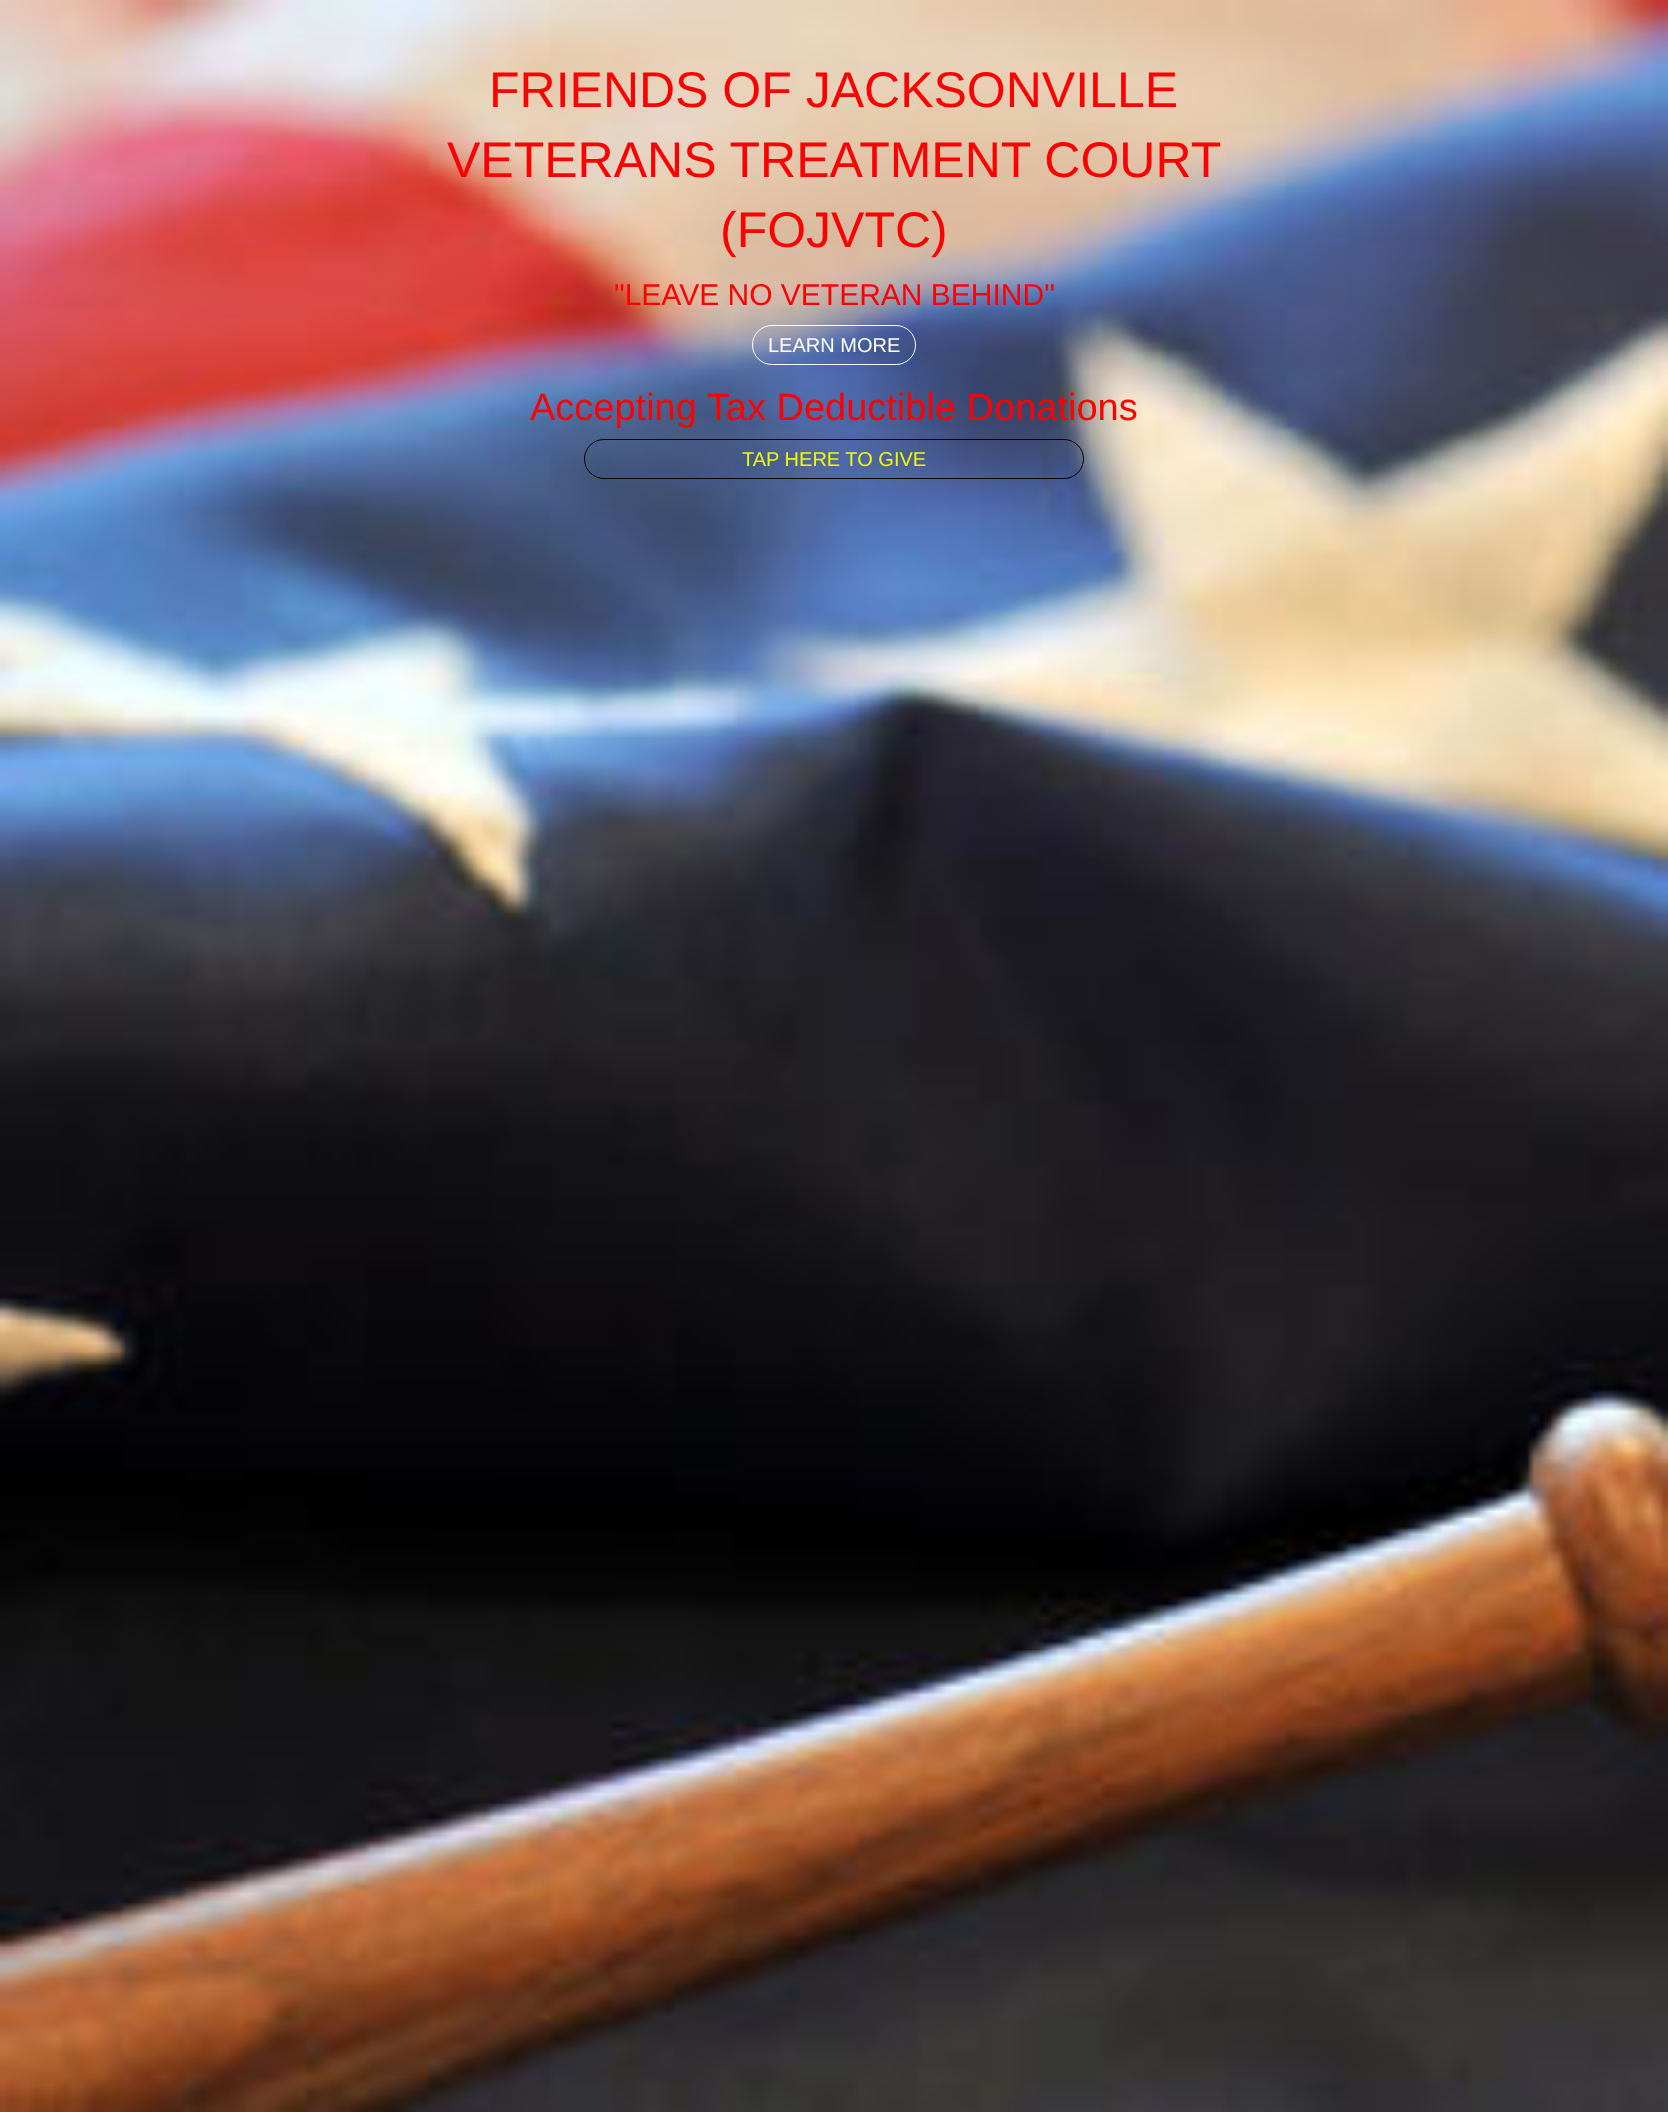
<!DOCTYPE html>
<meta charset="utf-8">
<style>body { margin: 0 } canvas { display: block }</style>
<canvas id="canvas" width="1668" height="2112"></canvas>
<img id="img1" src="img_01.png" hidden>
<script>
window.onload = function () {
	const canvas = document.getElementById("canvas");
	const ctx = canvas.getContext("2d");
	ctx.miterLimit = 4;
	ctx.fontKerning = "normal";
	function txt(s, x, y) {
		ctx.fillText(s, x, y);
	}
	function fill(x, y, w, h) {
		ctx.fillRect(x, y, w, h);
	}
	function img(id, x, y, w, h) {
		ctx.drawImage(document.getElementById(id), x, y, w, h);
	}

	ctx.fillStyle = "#FFFFFF";
	fill(0, 0, 1668, 2112);
	img("img1", 0, 0, 1668, 2112);
	ctx.beginPath();
	ctx.roundRect(752.5, 325.5, 163, 39, 19.5);
	ctx.strokeStyle = "#FFFFFF";
	ctx.stroke();
	ctx.beginPath();
	ctx.roundRect(584.5, 439.5, 499, 39, 19.5);
	ctx.strokeStyle = "#000000";
	ctx.stroke();
	ctx.font = "50px Liberation Sans";
	ctx.fillStyle = "#FF0000";
	txt("FRIENDS OF JACKSONVILLE", 489, 107);
	txt("VETERANS TREATMENT COURT", 447, 177);
	txt("(FOJVTC)", 720, 247);
	ctx.font = "30px Liberation Sans";
	txt("\"LEAVE NO VETERAN BEHIND\"", 614, 305);
	ctx.font = "20px Liberation Sans";
	ctx.fillStyle = "#FFFFFF";
	txt("LEARN MORE", 768, 352);
	ctx.font = "38px Liberation Sans";
	ctx.fillStyle = "#FF0000";
	txt("Accepting Tax Deductible Donations", 530, 420);
	ctx.font = "20px Liberation Sans";
	ctx.fillStyle = "#EEFA03";
	txt("TAP HERE TO GIVE", 742, 466);
};
</script>
